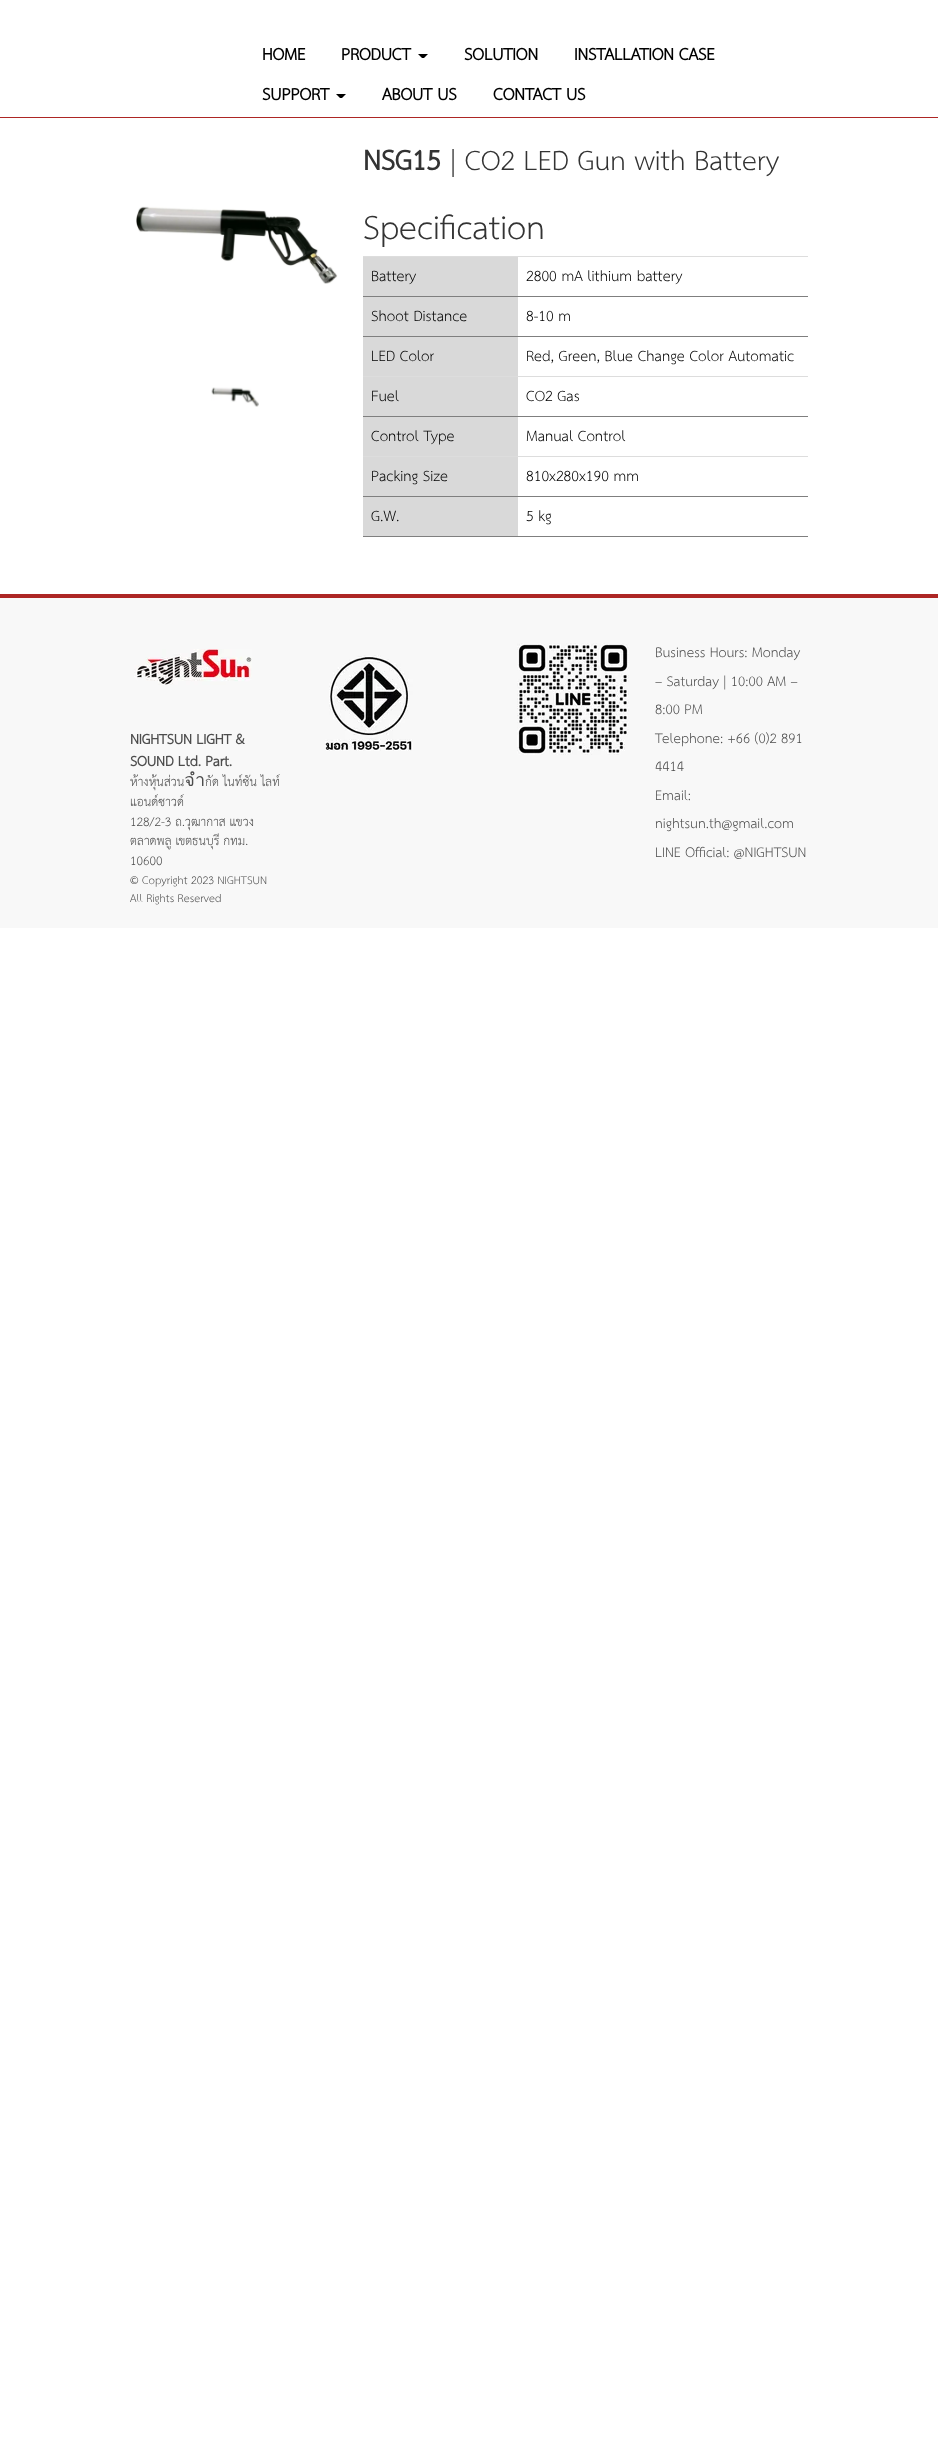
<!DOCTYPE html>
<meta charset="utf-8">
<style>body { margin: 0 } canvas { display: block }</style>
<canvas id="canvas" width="938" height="2463"></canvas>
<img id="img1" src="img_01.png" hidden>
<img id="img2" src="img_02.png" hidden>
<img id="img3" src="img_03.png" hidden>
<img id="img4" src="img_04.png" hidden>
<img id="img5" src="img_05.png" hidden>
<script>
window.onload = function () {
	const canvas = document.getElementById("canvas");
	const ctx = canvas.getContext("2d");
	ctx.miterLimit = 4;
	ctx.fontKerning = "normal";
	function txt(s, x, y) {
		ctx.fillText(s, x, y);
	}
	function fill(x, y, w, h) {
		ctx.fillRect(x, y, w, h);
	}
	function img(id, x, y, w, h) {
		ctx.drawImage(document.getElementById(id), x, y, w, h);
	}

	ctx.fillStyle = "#FFFFFF";
	fill(0, 0, 938, 2463);
	ctx.fillStyle = "#000000";
	ctx.beginPath();
	ctx.moveTo(418, 54);
	ctx.lineTo(428, 54);
	ctx.lineTo(424, 58);
	ctx.lineTo(422, 58);
	ctx.closePath();
	ctx.fill();
	ctx.beginPath();
	ctx.moveTo(336, 94);
	ctx.lineTo(346, 94);
	ctx.lineTo(342, 98);
	ctx.lineTo(340, 98);
	ctx.closePath();
	ctx.fill();
	ctx.fillStyle = "#AD2624";
	fill(0, 117, 938, 1);
	img("img1", 136, 206, 202, 78);
	img("img2", 211, 387, 48, 20);
	ctx.fillStyle = "#D9D9D9";
	fill(363, 257, 155, 39);
	ctx.fillStyle = "#DDDDDD";
	fill(363, 256, 445, 1);
	ctx.fillStyle = "#7F7F7F";
	fill(363, 296, 445, 1);
	ctx.fillStyle = "#D9D9D9";
	fill(363, 297, 155, 39);
	ctx.fillStyle = "#7F7F7F";
	fill(363, 336, 445, 1);
	ctx.fillStyle = "#D9D9D9";
	fill(363, 337, 155, 39);
	fill(363, 377, 155, 39);
	ctx.fillStyle = "#DDDDDD";
	fill(363, 376, 445, 1);
	ctx.fillStyle = "#7F7F7F";
	fill(363, 416, 445, 1);
	ctx.fillStyle = "#D9D9D9";
	fill(363, 417, 155, 39);
	fill(363, 457, 155, 39);
	ctx.fillStyle = "#DDDDDD";
	fill(363, 456, 445, 1);
	ctx.fillStyle = "#7F7F7F";
	fill(363, 496, 445, 1);
	ctx.fillStyle = "#D9D9D9";
	fill(363, 497, 155, 39);
	ctx.fillStyle = "#7F7F7F";
	fill(363, 536, 445, 1);
	ctx.fillStyle = "#AD2624";
	fill(0, 594, 938, 4);
	ctx.fillStyle = "#F8F8F8";
	fill(0, 598, 938, 330);
	img("img3", 325, 655, 88, 96);
	img("img4", 517, 643, 112, 112);
	img("img5", 134, 649, 118, 36);
	ctx.font = "bold 23.75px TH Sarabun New";
	ctx.fillStyle = "#000000";
	txt("HOME", 262, 60);
	txt("PRODUCT", 341, 60);
	txt("SOLUTION", 464, 60);
	txt("INSTALLATION CASE", 574, 60);
	txt("SUPPORT", 262, 100);
	txt("ABOUT US", 382, 100);
	txt("CONTACT US", 493, 100);
	ctx.font = "bold 40px TH Sarabun New";
	ctx.fillStyle = "#333333";
	txt("NSG15", 363, 170);
	ctx.font = "40px TH Sarabun New";
	txt("| CO2 LED Gun with Battery", 450, 170);
	ctx.font = "48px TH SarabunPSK";
	txt("Specification", 363, 239);
	ctx.font = "21.3px TH SarabunPSK";
	ctx.fillStyle = "#000000";
	txt("Battery", 371, 281);
	txt("2800 mA lithium battery", 526, 281);
	txt("Shoot Distance", 371, 321);
	txt("8-10 m", 526, 321);
	txt("LED Color", 371, 361);
	txt("Red, Green, Blue Change Color Automatic", 526, 361);
	txt("Fuel", 371, 401);
	txt("CO2 Gas", 526, 401);
	txt("Control Type", 371, 441);
	txt("Manual Control", 526, 441);
	txt("Packing Size", 371, 481);
	txt("810x280x190 mm", 526, 481);
	txt("G.W.", 371, 521);
	txt("5 kg", 526, 521);
	ctx.font = "20px TH Sarabun New";
	ctx.fillStyle = "#4D4D4D";
	txt("Business Hours: Monday", 655, 657);
	txt("– Saturday | 10:00 AM –", 655, 686);
	txt("8:00 PM", 655, 714);
	txt("Telephone: +66 (0)2 891", 655, 743);
	txt("4414", 655, 771);
	txt("Email:", 655, 800);
	txt("nightsun.th@gmail.com", 655, 828);
	txt("LINE Official: @NIGHTSUN", 655, 857);
	ctx.font = "bold 20px TH Sarabun New";
	txt("NIGHTSUN LIGHT &", 130, 744);
	txt("SOUND Ltd. Part.", 130, 766);
	ctx.font = "18px TH Sarabun New";
	txt("ห้างหุ้นส่วนจำกัด ไนท์ซัน ไลท์", 130, 786);
	txt("แอนด์ซาวด์", 130, 806);
	txt("128/2-3 ถ.วุฒากาส แขวง", 130, 826);
	txt("ตลาดพลู เขตธนบุรี กทม.", 130, 845);
	txt("10600", 130, 865);
	ctx.font = "16px TH Sarabun New";
	txt("© Copyright 2023 NIGHTSUN", 130, 884);
	txt("All Rights Reserved", 130, 902);
};
</script>
